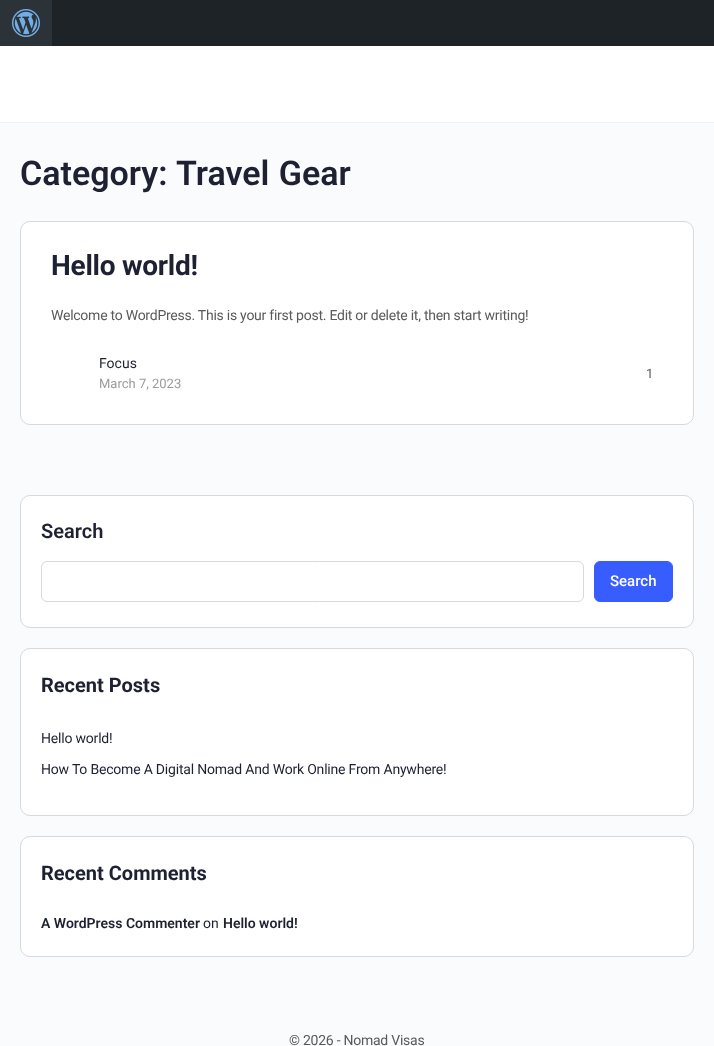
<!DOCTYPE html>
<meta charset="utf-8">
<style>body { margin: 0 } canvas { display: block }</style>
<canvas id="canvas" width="714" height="1046"></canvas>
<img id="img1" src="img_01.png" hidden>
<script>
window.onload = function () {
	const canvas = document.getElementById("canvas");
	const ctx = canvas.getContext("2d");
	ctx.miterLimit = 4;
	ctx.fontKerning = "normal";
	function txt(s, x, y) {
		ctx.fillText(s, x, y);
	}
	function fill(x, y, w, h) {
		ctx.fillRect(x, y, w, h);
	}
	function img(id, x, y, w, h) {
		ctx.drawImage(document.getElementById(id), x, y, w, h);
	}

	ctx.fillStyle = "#FAFBFD";
	fill(0, 0, 714, 1046);
	ctx.fillStyle = "#1D2327";
	fill(52, 0, 662, 46);
	ctx.fillStyle = "#2C3338";
	fill(0, 0, 52, 46);
	img("img1", 12, 9, 28, 28);
	ctx.fillStyle = "#F2F3F6";
	fill(0, 122, 714, 1);
	ctx.fillStyle = "#FFFFFF";
	fill(0, 46, 714, 76);
	ctx.beginPath();
	ctx.roundRect(20.5, 221.5, 673, 203, 9.5);
	ctx.fill();
	ctx.strokeStyle = "#D6D9DD";
	ctx.stroke();
	ctx.beginPath();
	ctx.roundRect(20.5, 495.5, 673, 132, 9.5);
	ctx.fill();
	ctx.stroke();
	ctx.beginPath();
	ctx.roundRect(41.5, 561.5, 542, 40, 5.5);
	ctx.stroke();
	ctx.fillStyle = "#385DFF";
	ctx.beginPath();
	ctx.roundRect(594.5, 561.5, 78, 40, 5.5);
	ctx.fill();
	ctx.strokeStyle = "#385DFF";
	ctx.stroke();
	ctx.fillStyle = "#FFFFFF";
	ctx.beginPath();
	ctx.roundRect(20.5, 648.5, 673, 167, 9.5);
	ctx.fill();
	ctx.strokeStyle = "#D6D9DD";
	ctx.stroke();
	ctx.beginPath();
	ctx.roundRect(20.5, 836.5, 673, 120, 9.5);
	ctx.fill();
	ctx.stroke();
	ctx.font = "600 34px Roboto";
	ctx.fillStyle = "#1E2132";
	txt("Category:", 20, 185);
	ctx.wordSpacing = "1px";
	txt("Travel Gear", 176, 185);
	ctx.letterSpacing = "-0.25px";
	ctx.wordSpacing = "0px";
	ctx.font = "bold 28px Roboto";
	txt("Hello world!", 51, 275);
	ctx.font = "14px Roboto";
	ctx.fillStyle = "#5A5A5A";
	txt("Welcome to WordPress. This is your first post. Edit or delete it, then start writing!", 51, 320);
	ctx.letterSpacing = "0px";
	ctx.fillStyle = "#1E2132";
	txt("Focus", 99, 368);
	ctx.font = "13px Roboto";
	ctx.fillStyle = "#9B9C9F";
	txt("March 7, 2023", 99, 388);
	ctx.letterSpacing = "-0.2px";
	ctx.fillStyle = "#5A5A5A";
	txt("1", 646, 378);
	ctx.letterSpacing = "0px";
	ctx.font = "600 20px Roboto";
	ctx.fillStyle = "#1E2132";
	txt("Search", 41, 538);
	ctx.font = "500 15px Roboto";
	ctx.fillStyle = "#FFFFFF";
	txt("Search", 610, 586);
	ctx.font = "bold 20px Roboto";
	ctx.fillStyle = "#1E2132";
	txt("Recent Posts", 41, 692);
	ctx.letterSpacing = "-0.2px";
	ctx.font = "14px Roboto";
	txt("Hello world!", 41, 743);
	txt("How To Become A Digital Nomad And Work Online From Anywhere!", 41, 774);
	ctx.letterSpacing = "0px";
	ctx.font = "bold 20px Roboto";
	txt("Recent Comments", 41, 880);
	ctx.font = "600 14px Roboto";
	txt("A WordPress Commenter", 41, 928);
	ctx.font = "14px Roboto";
	txt("on", 203, 928);
	ctx.font = "600 14px Roboto";
	txt("Hello world!", 223, 928);
	ctx.letterSpacing = "-0.25px";
	ctx.font = "14px Roboto";
	ctx.fillStyle = "#5A5A5A";
	txt("© 2026 - Nomad Visas", 289, 1045);
};
</script>
